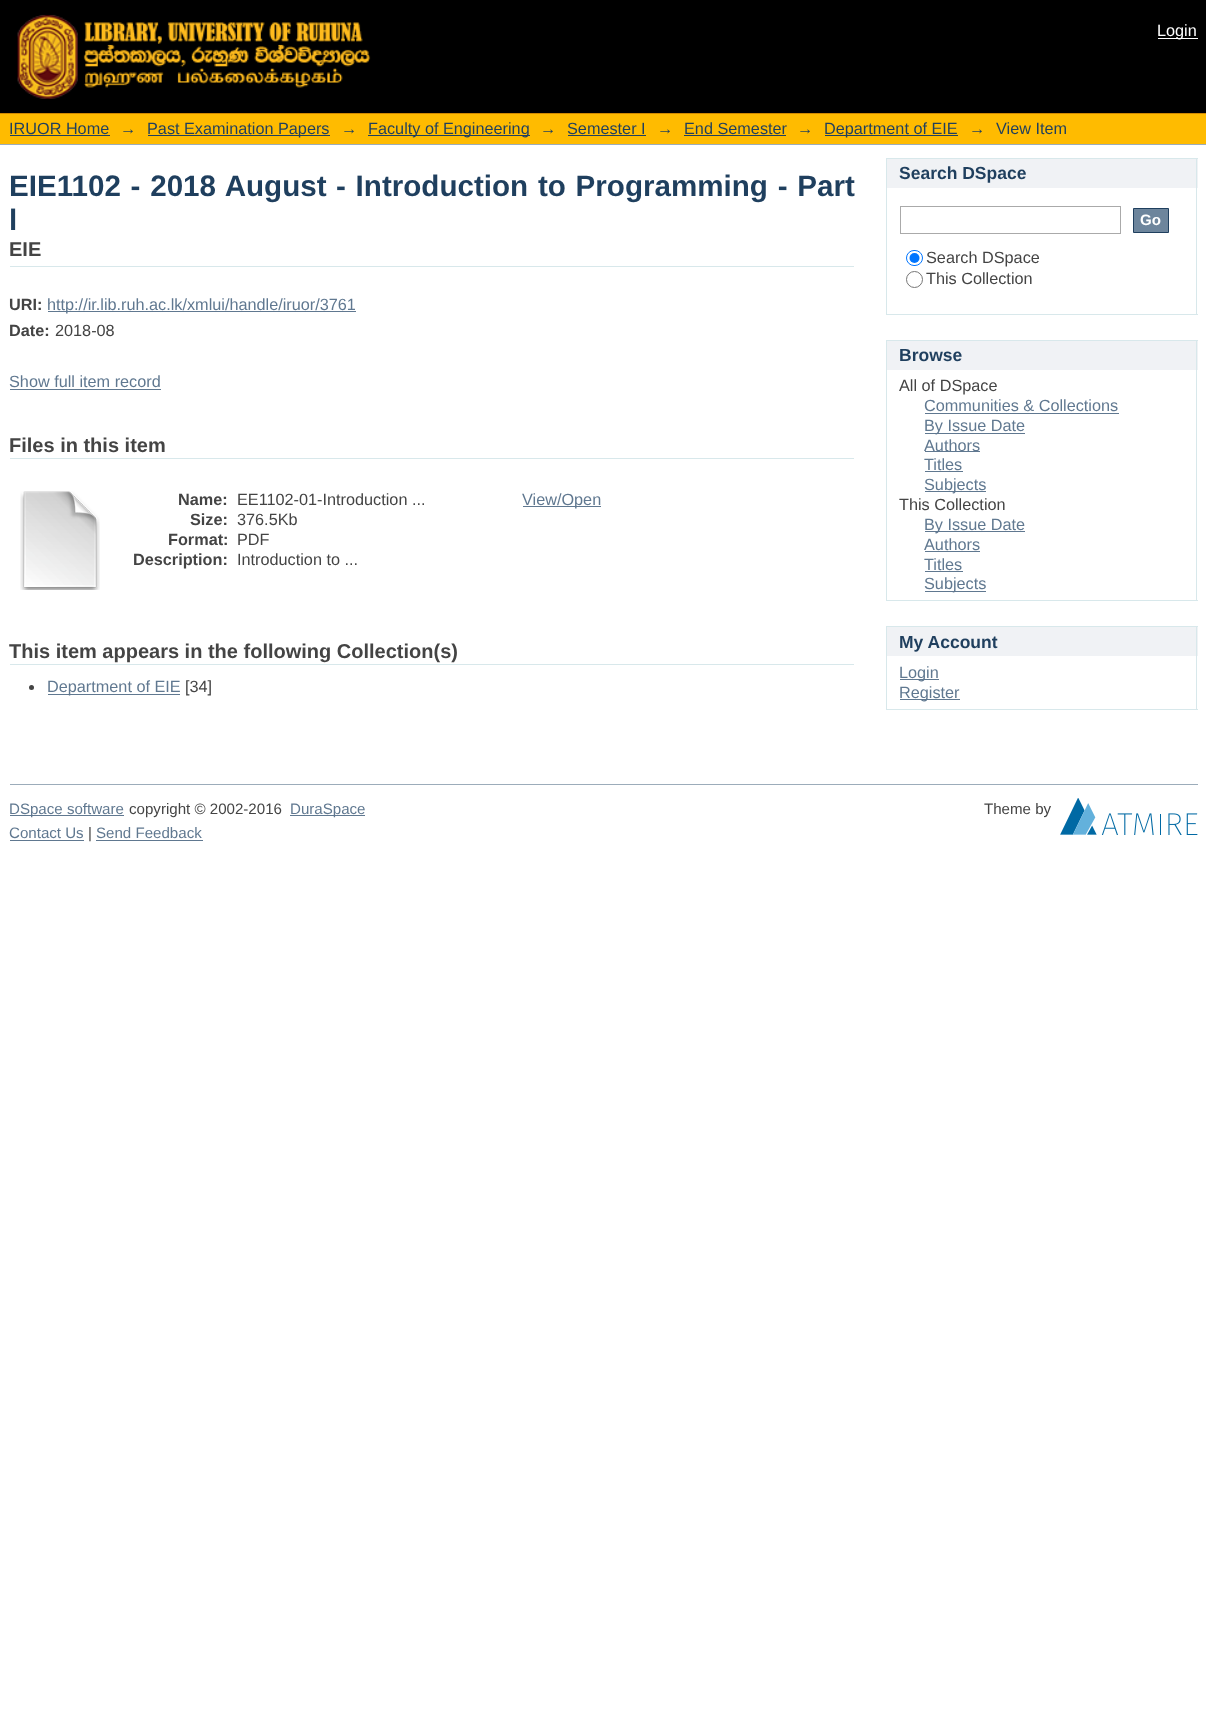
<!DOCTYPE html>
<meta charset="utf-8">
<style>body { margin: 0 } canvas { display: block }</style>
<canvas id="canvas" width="1206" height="1736"></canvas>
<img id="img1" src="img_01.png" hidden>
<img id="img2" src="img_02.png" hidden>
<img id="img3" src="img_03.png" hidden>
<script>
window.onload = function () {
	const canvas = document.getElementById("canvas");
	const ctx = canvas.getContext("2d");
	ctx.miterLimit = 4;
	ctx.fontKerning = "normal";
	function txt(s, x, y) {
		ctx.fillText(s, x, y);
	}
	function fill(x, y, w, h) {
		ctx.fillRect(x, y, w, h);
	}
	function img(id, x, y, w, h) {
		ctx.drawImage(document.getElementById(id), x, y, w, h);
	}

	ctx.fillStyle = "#FFFFFF";
	fill(0, 0, 1206, 1736);
	ctx.fillStyle = "#000000";
	fill(0, 0, 1206, 113);
	img("img1", 17, 14, 354, 85);
	ctx.fillStyle = "#FFFFFF";
	fill(1158, 38, 40, 1);
	ctx.fillStyle = "#FFBB00";
	fill(0, 114, 1206, 30);
	ctx.fillStyle = "#D18800";
	fill(0, 113, 1206, 1);
	ctx.fillStyle = "#9CACBA";
	fill(0, 144, 1206, 1);
	ctx.fillStyle = "#1F3F5E";
	fill(10, 135, 100, 1);
	fill(148, 135, 182, 1);
	fill(368, 135, 162, 1);
	fill(568, 135, 78, 1);
	fill(684, 135, 102, 1);
	fill(825, 135, 133, 1);
	ctx.fillStyle = "#D8E8EB";
	fill(10, 266, 844, 1);
	ctx.fillStyle = "#607890";
	fill(48, 311, 308, 1);
	fill(10, 389, 151, 1);
	ctx.fillStyle = "#D8E8EB";
	fill(10, 458, 844, 1);
	img("img2", 20, 491, 80, 99);
	ctx.fillStyle = "#607890";
	fill(523, 506, 78, 1);
	ctx.fillStyle = "#D8E8EB";
	fill(10, 664, 844, 1);
	ctx.fillStyle = "#444444";
	ctx.beginPath();
	ctx.arc(31.5, 687.5, 2.5, 0, Math.PI * 2);
	ctx.fill();
	ctx.fillStyle = "#607890";
	fill(48, 694, 132, 1);
	ctx.fillStyle = "#F0F2F5";
	fill(887, 159, 311, 29);
	ctx.fillStyle = "#D8E8EB";
	fill(886, 158, 312, 1);
	fill(1196, 158, 1, 157);
	fill(886, 158, 1, 30);
	fill(886, 314, 312, 1);
	fill(886, 188, 1, 127);
	ctx.strokeStyle = "#AAAAAA";
	ctx.strokeRect(900.5, 206.5, 220, 27);
	ctx.fillStyle = "#6D859C";
	ctx.beginPath();
	ctx.rect(1133.5, 208.5, 35, 24);
	ctx.fill();
	ctx.strokeStyle = "#1F3F5E";
	ctx.stroke();
	ctx.beginPath();
	ctx.roundRect(906.5, 250.5, 16, 15, 7.5);
	ctx.strokeStyle = "#0075FF";
	ctx.stroke();
	ctx.fillStyle = "#0075FF";
	ctx.beginPath();
	ctx.arc(914.5, 258, 5, 0, Math.PI * 2);
	ctx.fill();
	ctx.beginPath();
	ctx.arc(914.5, 279.5, 8, 0, Math.PI * 2);
	ctx.strokeStyle = "#767676";
	ctx.stroke();
	ctx.fillStyle = "#F0F2F5";
	fill(887, 341, 311, 29);
	ctx.fillStyle = "#D8E8EB";
	fill(886, 340, 312, 1);
	fill(1196, 340, 1, 261);
	fill(886, 340, 1, 30);
	fill(886, 600, 312, 1);
	fill(886, 370, 1, 231);
	ctx.fillStyle = "#607890";
	fill(925, 413, 194, 1);
	fill(925, 433, 100, 1);
	fill(925, 451, 55, 1);
	fill(925, 471, 38, 1);
	fill(925, 491, 61, 1);
	fill(925, 531, 100, 1);
	fill(925, 551, 55, 1);
	fill(925, 571, 38, 1);
	fill(925, 591, 61, 1);
	ctx.fillStyle = "#F0F2F5";
	fill(887, 627, 311, 29);
	ctx.fillStyle = "#D8E8EB";
	fill(886, 626, 312, 1);
	fill(1196, 626, 1, 84);
	fill(886, 626, 1, 30);
	fill(886, 709, 312, 1);
	fill(886, 656, 1, 54);
	ctx.fillStyle = "#607890";
	fill(900, 679, 39, 1);
	fill(900, 699, 60, 1);
	ctx.fillStyle = "#9CACBA";
	fill(10, 784, 1188, 1);
	ctx.fillStyle = "#607890";
	fill(10, 815, 114, 1);
	fill(290, 815, 75, 1);
	img("img3", 1060, 798, 138, 37);
	fill(10, 840, 74, 1);
	fill(96, 840, 107, 1);
	ctx.font = "16.25px Liberation Sans";
	ctx.fillStyle = "#FFFFFF";
	txt("Login", 1157, 36);
	ctx.fillStyle = "#1F3F5E";
	txt("IRUOR Home", 9, 134);
	txt("→", 120, 134);
	txt("Past Examination Papers", 147, 134);
	txt("→", 341, 134);
	txt("Faculty of Engineering", 368, 134);
	txt("→", 540, 134);
	txt("Semester I", 567, 134);
	txt("→", 657, 134);
	txt("End Semester", 684, 134);
	txt("→", 797, 134);
	txt("Department of EIE", 824, 134);
	txt("→", 969, 134);
	txt("View Item", 996, 134);
	ctx.wordSpacing = "1.5px";
	ctx.font = "bold 29.6px Liberation Sans";
	txt("EIE1102 - 2018 August", 9, 196);
	txt("- Introduction to Programming - Part", 336, 196);
	ctx.wordSpacing = "0px";
	txt("l", 9, 230);
	ctx.font = "bold 20px Liberation Sans";
	ctx.fillStyle = "#444444";
	txt("EIE", 9, 256);
	ctx.font = "bold 16.25px Liberation Sans";
	txt("URI:", 9, 310);
	ctx.font = "16.25px Liberation Sans";
	ctx.fillStyle = "#607890";
	txt("http://ir.lib.ruh.ac.lk/xmlui/handle/iruor/3761", 47, 310);
	ctx.font = "bold 16.25px Liberation Sans";
	ctx.fillStyle = "#444444";
	txt("Date:", 9, 336);
	ctx.font = "16.25px Liberation Sans";
	txt("2018-08", 55, 336);
	ctx.fillStyle = "#607890";
	txt("Show full item record", 9, 387);
	ctx.font = "bold 20px Liberation Sans";
	ctx.fillStyle = "#444444";
	txt("Files in this item", 9, 452);
	ctx.font = "bold 16.25px Liberation Sans";
	txt("Name:", 178, 505);
	ctx.font = "16.25px Liberation Sans";
	txt("EE1102-01-Introduction ...", 237, 505);
	ctx.font = "bold 16.25px Liberation Sans";
	txt("Size:", 190, 525);
	ctx.font = "16.25px Liberation Sans";
	txt("376.5Kb", 237, 525);
	ctx.font = "bold 16.25px Liberation Sans";
	txt("Format:", 168, 545);
	ctx.font = "16.25px Liberation Sans";
	txt("PDF", 237, 545);
	ctx.font = "bold 16.25px Liberation Sans";
	txt("Description:", 133, 565);
	ctx.font = "16.25px Liberation Sans";
	txt("Introduction to ...", 237, 565);
	ctx.fillStyle = "#607890";
	txt("View/Open", 522, 505);
	ctx.font = "bold 20px Liberation Sans";
	ctx.fillStyle = "#444444";
	txt("This item appears in the following Collection(s)", 9, 658);
	ctx.font = "16.25px Liberation Sans";
	ctx.fillStyle = "#607890";
	txt("Department of EIE", 47, 692);
	ctx.fillStyle = "#444444";
	txt("[34]", 185, 692);
	ctx.font = "bold 17.5px Liberation Sans";
	ctx.fillStyle = "#1F3F5E";
	txt("Search DSpace", 899, 179);
	ctx.font = "bold 15.1px Liberation Sans";
	ctx.fillStyle = "#FFFFFF";
	txt("Go", 1140, 225);
	ctx.font = "16.25px Liberation Sans";
	ctx.fillStyle = "#444444";
	txt("Search DSpace", 926, 263);
	txt("This Collection", 926, 284);
	ctx.font = "bold 17.5px Liberation Sans";
	ctx.fillStyle = "#1F3F5E";
	txt("Browse", 899, 361);
	ctx.font = "16.25px Liberation Sans";
	ctx.fillStyle = "#444444";
	txt("All of DSpace", 899, 391);
	ctx.fillStyle = "#607890";
	txt("Communities & Collections", 924, 411);
	txt("By Issue Date", 924, 431);
	txt("Authors", 924, 451);
	txt("Titles", 924, 470);
	txt("Subjects", 924, 490);
	ctx.fillStyle = "#444444";
	txt("This Collection", 899, 510);
	ctx.fillStyle = "#607890";
	txt("By Issue Date", 924, 530);
	txt("Authors", 924, 550);
	txt("Titles", 924, 570);
	txt("Subjects", 924, 589);
	ctx.font = "bold 17.5px Liberation Sans";
	ctx.fillStyle = "#1F3F5E";
	txt("My Account", 899, 648);
	ctx.font = "16.25px Liberation Sans";
	ctx.fillStyle = "#607890";
	txt("Login", 899, 678);
	txt("Register", 899, 698);
	ctx.font = "15.1px Liberation Sans";
	txt("DSpace software", 9, 814);
	ctx.fillStyle = "#444444";
	txt("copyright © 2002-2016", 129, 814);
	ctx.fillStyle = "#607890";
	txt("DuraSpace", 290, 814);
	ctx.fillStyle = "#444444";
	txt("Theme by", 984, 814);
	ctx.fillStyle = "#607890";
	txt("Contact Us", 9, 838);
	ctx.fillStyle = "#444444";
	txt("|", 88, 838);
	ctx.fillStyle = "#607890";
	txt("Send Feedback", 96, 838);
};
</script>
